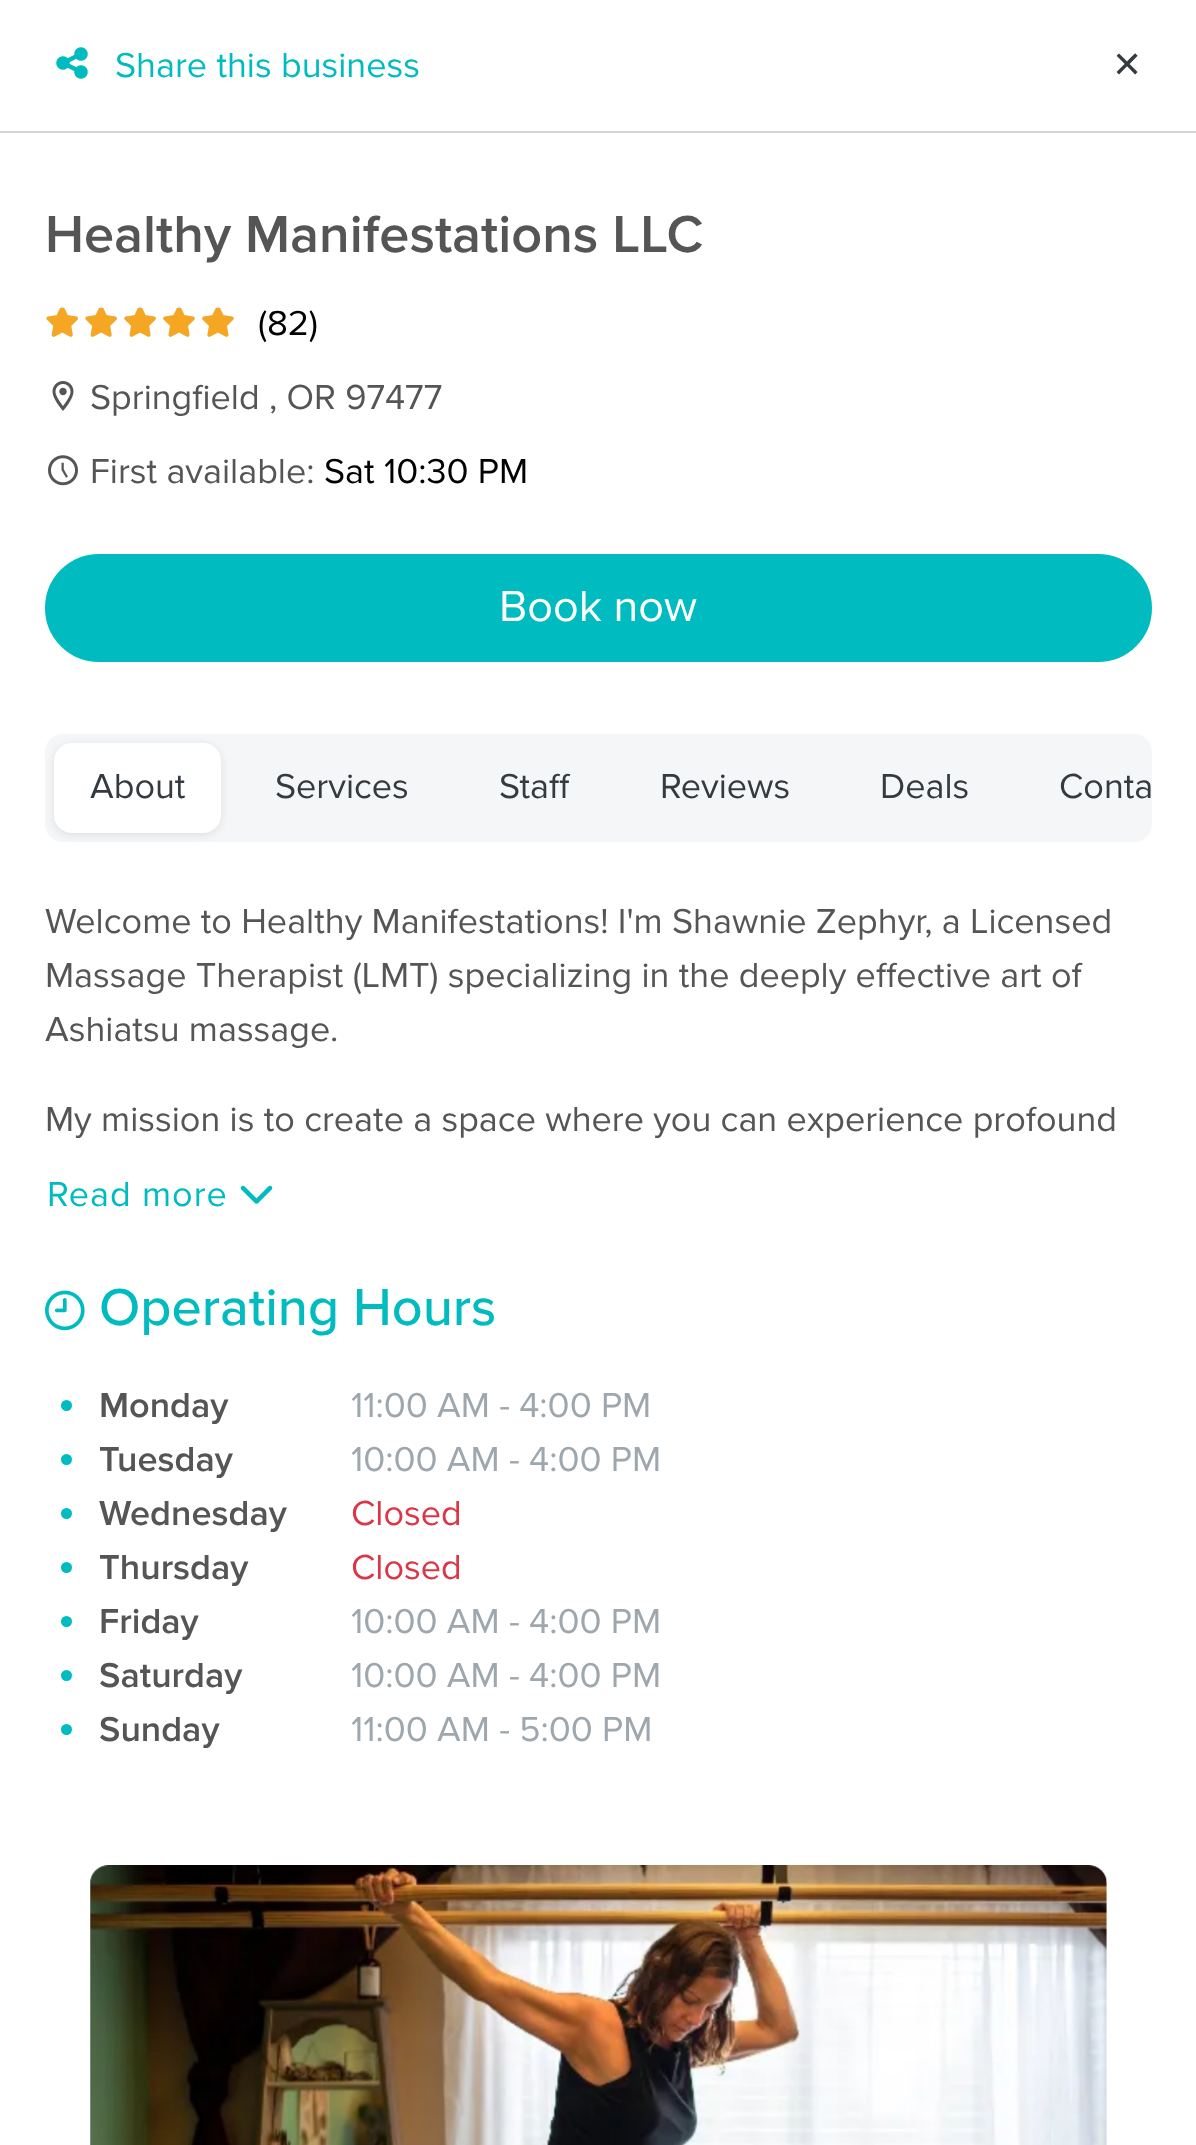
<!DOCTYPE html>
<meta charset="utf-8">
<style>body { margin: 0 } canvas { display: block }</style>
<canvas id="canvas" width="1196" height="2145"></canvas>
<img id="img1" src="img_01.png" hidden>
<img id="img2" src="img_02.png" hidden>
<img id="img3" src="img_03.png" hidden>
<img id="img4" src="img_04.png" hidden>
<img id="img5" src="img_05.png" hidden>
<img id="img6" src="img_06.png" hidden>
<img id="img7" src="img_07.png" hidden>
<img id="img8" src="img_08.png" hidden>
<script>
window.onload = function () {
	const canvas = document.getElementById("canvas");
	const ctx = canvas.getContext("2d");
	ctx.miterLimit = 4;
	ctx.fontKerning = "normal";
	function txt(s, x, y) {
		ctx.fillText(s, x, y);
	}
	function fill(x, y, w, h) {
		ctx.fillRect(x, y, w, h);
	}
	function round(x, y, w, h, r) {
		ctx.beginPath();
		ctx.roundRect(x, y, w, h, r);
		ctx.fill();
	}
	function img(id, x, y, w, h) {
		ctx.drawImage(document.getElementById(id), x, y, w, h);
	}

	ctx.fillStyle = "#FFFFFF";
	fill(0, 0, 1196, 2145);
	ctx.fillStyle = "#CED4DA";
	fill(0, 131, 1196, 2);
	img("img1", 56, 47, 32, 32);
	img("img2", 46, 306, 188, 31);
	img("img3", 46, 308, 188, 29);
	img("img4", 52, 381, 22, 30);
	img("img5", 48, 455, 30, 31);
	ctx.fillStyle = "#00BCC0";
	ctx.beginPath();
	ctx.roundRect(46, 555, 1105, 106, 53);
	ctx.fill();
	ctx.strokeStyle = "#00BCC0";
	ctx.lineWidth = 2;
	ctx.stroke();
	ctx.fillStyle = "#F5F6F7";
	round(45, 734, 1107, 108, 18);
	ctx.fillStyle = "rgba(18, 18, 18, 0.1)";
	ctx.filter = "blur(4.5px)";
	ctx.beginPath();
	ctx.roundRect(54, 745, 167, 90, 18);
	ctx.fill();
	ctx.filter = "none";
	ctx.fillStyle = "#FFFFFF";
	round(54, 743, 167, 90, 18);
	img("img6", 240, 1185, 33, 19);
	img("img7", 45, 1290, 40, 41);
	ctx.fillStyle = "#00BCC0";
	ctx.beginPath();
	ctx.arc(66.5, 1405.5, 5.5, 0, Math.PI * 2);
	ctx.fill();
	ctx.beginPath();
	ctx.arc(66.5, 1459.5, 5.5, 0, Math.PI * 2);
	ctx.fill();
	ctx.beginPath();
	ctx.arc(66.5, 1513.5, 5.5, 0, Math.PI * 2);
	ctx.fill();
	ctx.beginPath();
	ctx.arc(66.5, 1567.5, 5.5, 0, Math.PI * 2);
	ctx.fill();
	ctx.beginPath();
	ctx.arc(66.5, 1621.5, 5.5, 0, Math.PI * 2);
	ctx.fill();
	ctx.beginPath();
	ctx.arc(66.5, 1675.5, 5.5, 0, Math.PI * 2);
	ctx.fill();
	ctx.beginPath();
	ctx.arc(66.5, 1729.5, 5.5, 0, Math.PI * 2);
	ctx.fill();
	img("img8", 90, 1865, 1017, 280);
	ctx.font = "36px Proxima Nova";
	txt("Share this business", 115, 77);
	ctx.letterSpacing = "1px";
	ctx.font = "36px DejaVu Sans";
	ctx.fillStyle = "#343A40";
	txt("✕", 1112, 77);
	ctx.letterSpacing = "0px";
	ctx.font = "600 54px Proxima Nova";
	ctx.fillStyle = "#555555";
	txt("Healthy Manifestations LLC", 45, 252);
	ctx.font = "36px Proxima Nova";
	ctx.fillStyle = "#000000";
	txt("(82)", 258, 335);
	ctx.fillStyle = "#555555";
	txt("Springfield , OR 97477", 90, 409);
	txt("First available:", 90, 483);
	ctx.fillStyle = "#000000";
	txt("Sat 10:30 PM", 324, 483);
	ctx.font = "45px Proxima Nova";
	ctx.fillStyle = "#FFFFFF";
	txt("Book now", 499, 621);
	ctx.font = "36px Proxima Nova";
	ctx.fillStyle = "#343A40";
	txt("About", 90, 798);
	txt("Services", 275, 798);
	txt("Staff", 499, 798);
	txt("Reviews", 660, 798);
	txt("Deals", 880, 798);
	txt("Conta", 1059, 798);
	ctx.fillStyle = "#555555";
	txt("Welcome to Healthy Manifestations! I'm Shawnie Zephyr, a Licensed", 45, 933);
	txt("Massage Therapist (LMT) specializing in the deeply effective art of", 45, 987);
	txt("Ashiatsu massage.", 45, 1041);
	txt("My mission is to create a space where you can experience profound", 45, 1131);
	ctx.letterSpacing = "1px";
	ctx.fillStyle = "#00BCC0";
	txt("Read more", 47, 1206);
	ctx.letterSpacing = "0px";
	ctx.font = "500 54px Proxima Nova";
	txt("Operating Hours", 99, 1325);
	ctx.font = "600 36px Proxima Nova";
	ctx.fillStyle = "#555555";
	txt("Monday", 99, 1417);
	ctx.font = "36px Proxima Nova";
	ctx.fillStyle = "#9DA7AD";
	txt("11:00 AM - 4:00 PM", 351, 1417);
	ctx.font = "600 36px Proxima Nova";
	ctx.fillStyle = "#555555";
	txt("Tuesday", 99, 1471);
	ctx.font = "36px Proxima Nova";
	ctx.fillStyle = "#9DA7AD";
	txt("10:00 AM - 4:00 PM", 351, 1471);
	ctx.font = "600 36px Proxima Nova";
	ctx.fillStyle = "#555555";
	txt("Wednesday", 99, 1525);
	ctx.font = "36px Proxima Nova";
	ctx.fillStyle = "#DC3545";
	txt("Closed", 351, 1525);
	ctx.font = "600 36px Proxima Nova";
	ctx.fillStyle = "#555555";
	txt("Thursday", 99, 1579);
	ctx.font = "36px Proxima Nova";
	ctx.fillStyle = "#DC3545";
	txt("Closed", 351, 1579);
	ctx.font = "600 36px Proxima Nova";
	ctx.fillStyle = "#555555";
	txt("Friday", 99, 1633);
	ctx.font = "36px Proxima Nova";
	ctx.fillStyle = "#9DA7AD";
	txt("10:00 AM - 4:00 PM", 351, 1633);
	ctx.font = "600 36px Proxima Nova";
	ctx.fillStyle = "#555555";
	txt("Saturday", 99, 1687);
	ctx.font = "36px Proxima Nova";
	ctx.fillStyle = "#9DA7AD";
	txt("10:00 AM - 4:00 PM", 351, 1687);
	ctx.font = "600 36px Proxima Nova";
	ctx.fillStyle = "#555555";
	txt("Sunday", 99, 1741);
	ctx.font = "36px Proxima Nova";
	ctx.fillStyle = "#9DA7AD";
	txt("11:00 AM - 5:00 PM", 351, 1741);
};
</script>
